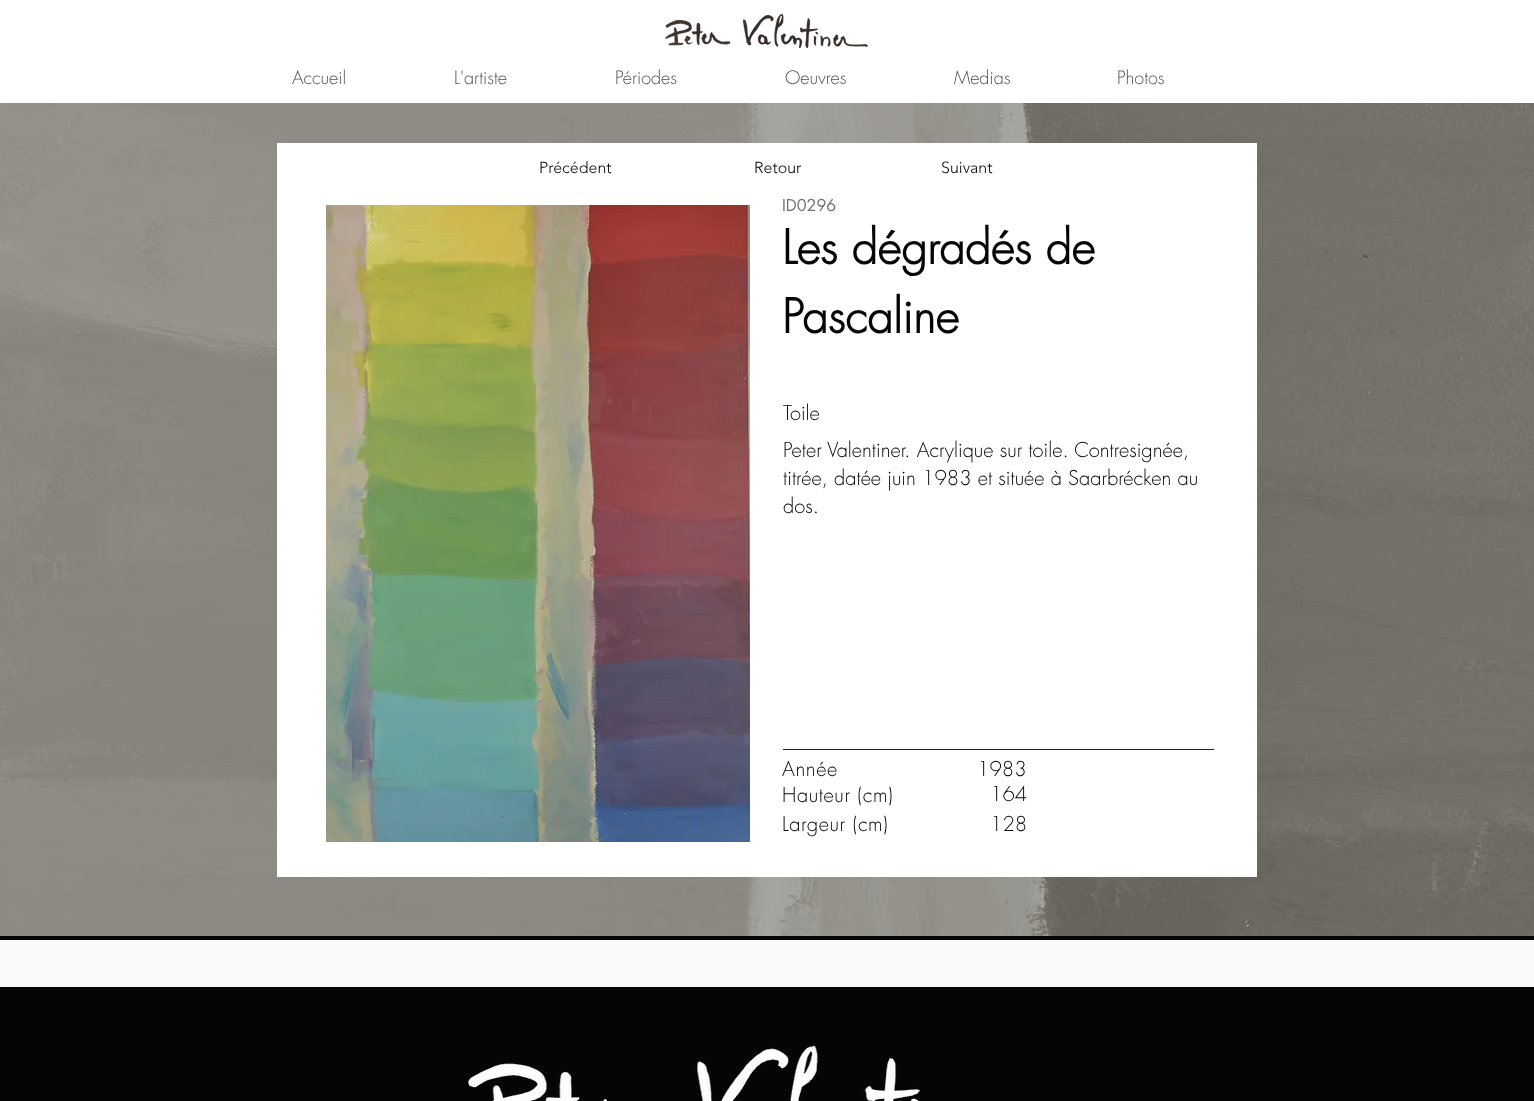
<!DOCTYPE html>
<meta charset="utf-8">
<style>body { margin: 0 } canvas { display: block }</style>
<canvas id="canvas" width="1534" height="1101"></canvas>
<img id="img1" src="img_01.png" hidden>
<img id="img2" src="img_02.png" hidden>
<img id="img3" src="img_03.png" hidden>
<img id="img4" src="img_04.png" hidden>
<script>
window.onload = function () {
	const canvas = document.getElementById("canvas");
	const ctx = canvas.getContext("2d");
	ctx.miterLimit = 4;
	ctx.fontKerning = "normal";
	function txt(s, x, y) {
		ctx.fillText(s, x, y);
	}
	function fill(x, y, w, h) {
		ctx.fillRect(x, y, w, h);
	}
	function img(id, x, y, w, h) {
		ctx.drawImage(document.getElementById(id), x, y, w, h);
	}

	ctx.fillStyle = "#050505";
	fill(0, 0, 1534, 1101);
	ctx.fillStyle = "#FFFFFF";
	fill(0, 0, 1534, 103);
	img("img1", 665, 14, 203, 34);
	img("img2", 0, 103, 1534, 833);
	fill(277, 143, 980, 734);
	img("img3", 326, 205, 424, 637);
	ctx.fillStyle = "#282626";
	fill(783, 749, 431, 1);
	ctx.fillStyle = "#FAFAFA";
	fill(0, 940, 1534, 47);
	img("img4", 468, 1046, 452, 55);
	ctx.font = "300 18px futura";
	ctx.fillStyle = "#4F4F4F";
	txt("Accueil", 292, 84);
	txt("L'artiste", 454, 84);
	txt("Périodes", 615, 84);
	txt("Oeuvres", 785, 84);
	txt("Medias", 954, 84);
	txt("Photos", 1117, 84);
	ctx.font = "300 16px 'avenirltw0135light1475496'";
	ctx.fillStyle = "#050505";
	txt("Précédent", 539, 173);
	txt("Retour", 754, 173);
	txt("Suivant", 941, 173);
	ctx.font = "16px futura";
	ctx.fillStyle = "#747373";
	txt("ID0296", 782, 211);
	ctx.font = "bold 46px futura";
	ctx.fillStyle = "#050505";
	txt("Les dégradés de", 782, 264);
	txt("Pascaline", 782, 333);
	ctx.font = "300 20px futura";
	txt("Toile", 783, 420);
	txt("Peter Valentiner. Acrylique sur toile. Contresignée,", 783, 457);
	txt("titrée, datée juin 1983 et située à Saarbrécken au", 783, 485);
	txt("dos.", 783, 513);
	ctx.letterSpacing = "0.6px";
	txt("Année", 782, 776);
	ctx.letterSpacing = "0px";
	txt("1983", 977, 776);
	ctx.letterSpacing = "0.6px";
	txt("Hauteur (cm)", 782, 802);
	ctx.letterSpacing = "0px";
	txt("164", 990, 801);
	ctx.letterSpacing = "0.6px";
	txt("Largeur (cm)", 782, 831);
	ctx.letterSpacing = "0px";
	txt("128", 990, 831);
};
</script>
